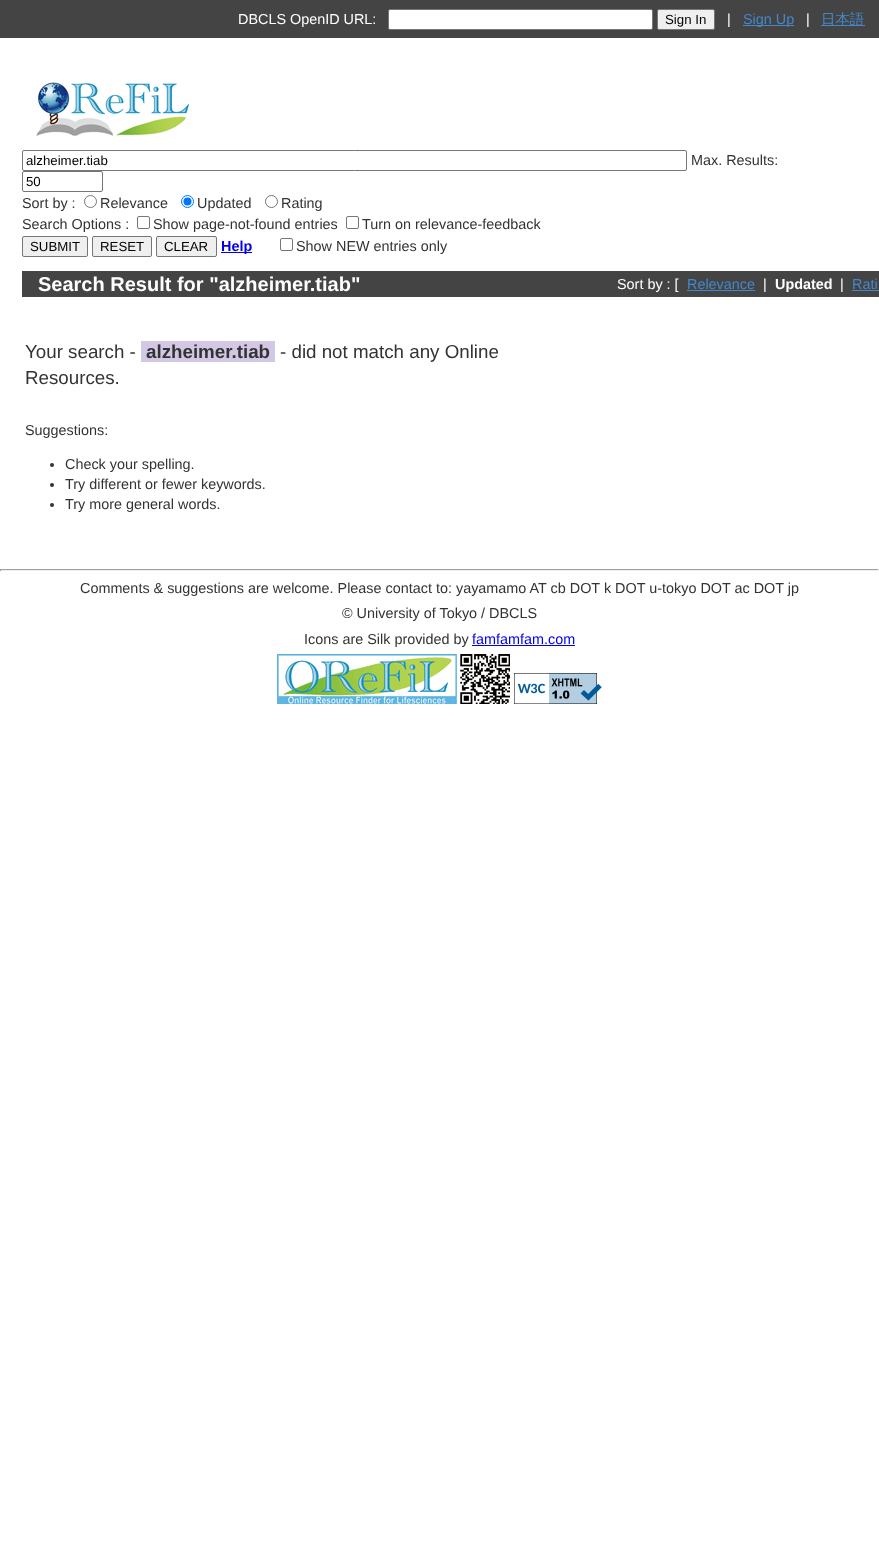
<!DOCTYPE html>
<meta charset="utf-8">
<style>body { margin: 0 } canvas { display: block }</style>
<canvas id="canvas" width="879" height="1551"></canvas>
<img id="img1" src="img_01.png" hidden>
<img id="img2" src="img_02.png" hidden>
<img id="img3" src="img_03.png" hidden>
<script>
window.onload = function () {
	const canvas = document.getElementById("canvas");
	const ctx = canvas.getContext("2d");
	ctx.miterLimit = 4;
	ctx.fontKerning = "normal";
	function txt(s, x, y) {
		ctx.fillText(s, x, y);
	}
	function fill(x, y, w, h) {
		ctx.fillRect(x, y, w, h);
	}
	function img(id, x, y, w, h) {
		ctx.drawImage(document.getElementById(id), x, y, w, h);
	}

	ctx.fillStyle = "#FFFFFF";
	fill(0, 0, 879, 1551);
	ctx.fillStyle = "#444444";
	fill(0, 0, 879, 38);
	ctx.fillStyle = "#FFFFFF";
	ctx.beginPath();
	ctx.roundRect(388.5, 9.5, 264, 20, 1.5);
	ctx.fill();
	ctx.strokeStyle = "#767676";
	ctx.stroke();
	ctx.fillStyle = "#EFEFEF";
	ctx.beginPath();
	ctx.roundRect(657.5, 9.5, 57, 20, 1.5);
	ctx.fill();
	ctx.stroke();
	ctx.fillStyle = "#4488CC";
	fill(743, 25, 51, 1);
	fill(821, 25, 44, 1);
	img("img1", 36, 82, 153, 54);
	ctx.beginPath();
	ctx.roundRect(22.5, 150.5, 664, 20, 1.5);
	ctx.stroke();
	ctx.beginPath();
	ctx.roundRect(22.5, 171.5, 80, 20, 1.5);
	ctx.stroke();
	ctx.beginPath();
	ctx.arc(90.5, 201.5, 6, 0, Math.PI * 2);
	ctx.stroke();
	ctx.beginPath();
	ctx.arc(187.5, 201.5, 6, 0, Math.PI * 2);
	ctx.strokeStyle = "#0075FF";
	ctx.stroke();
	ctx.fillStyle = "#0075FF";
	ctx.beginPath();
	ctx.arc(187.5, 201.5, 4, 0, Math.PI * 2);
	ctx.fill();
	ctx.beginPath();
	ctx.arc(271.5, 201.5, 6, 0, Math.PI * 2);
	ctx.strokeStyle = "#767676";
	ctx.stroke();
	ctx.beginPath();
	ctx.roundRect(137.5, 216.5, 12, 12, 1.5);
	ctx.stroke();
	ctx.beginPath();
	ctx.roundRect(346.5, 216.5, 12, 12, 1.5);
	ctx.stroke();
	ctx.fillStyle = "#EFEFEF";
	ctx.beginPath();
	ctx.roundRect(22.5, 236.5, 65, 20, 1.5);
	ctx.fill();
	ctx.stroke();
	ctx.beginPath();
	ctx.roundRect(92.5, 236.5, 59, 20, 1.5);
	ctx.fill();
	ctx.stroke();
	ctx.beginPath();
	ctx.roundRect(156.5, 236.5, 60, 20, 1.5);
	ctx.fill();
	ctx.stroke();
	ctx.fillStyle = "#0000EE";
	fill(221, 252, 31, 1);
	ctx.beginPath();
	ctx.roundRect(280.5, 238.5, 12, 12, 1.5);
	ctx.stroke();
	ctx.fillStyle = "#444444";
	fill(22, 271, 857, 26);
	ctx.fillStyle = "#4488CC";
	fill(687, 290, 68, 1);
	fill(852, 290, 27, 1);
	ctx.fillStyle = "#D2C8E6";
	fill(141, 341, 134, 21);
	ctx.fillStyle = "#333333";
	ctx.beginPath();
	ctx.arc(52, 465, 2, 0, Math.PI * 2);
	ctx.fill();
	ctx.beginPath();
	ctx.arc(52, 485, 2, 0, Math.PI * 2);
	ctx.fill();
	ctx.beginPath();
	ctx.arc(52, 505, 2, 0, Math.PI * 2);
	ctx.fill();
	ctx.fillStyle = "#9F9F9F";
	fill(0, 569, 879, 1);
	ctx.fillStyle = "#EEEEEE";
	fill(878, 569, 1, 2);
	fill(0, 570, 879, 1);
	ctx.fillStyle = "#9F9F9F";
	fill(0, 569, 1, 2);
	ctx.fillStyle = "#0000EE";
	fill(472, 645, 103, 1);
	img("img2", 277, 654, 233, 50);
	img("img3", 514, 673, 88, 31);
	ctx.font = "14.4px Liberation Sans";
	ctx.fillStyle = "#FFFFFF";
	txt("DBCLS OpenID URL:", 238, 24);
	ctx.font = "13.25px Liberation Sans";
	ctx.fillStyle = "#000000";
	txt("Sign In", 665, 24);
	ctx.font = "14.4px Liberation Sans";
	ctx.fillStyle = "#FFFFFF";
	txt("|", 727, 24);
	ctx.fillStyle = "#4488CC";
	txt("Sign Up", 743, 24);
	ctx.fillStyle = "#FFFFFF";
	txt("|", 806, 24);
	ctx.font = "500 14.4px WenQuanYi Zen Hei";
	ctx.fillStyle = "#4488CC";
	txt("日本語", 821, 24);
	ctx.font = "13.25px Liberation Sans";
	ctx.fillStyle = "#000000";
	txt("alzheimer.tiab", 26, 165);
	ctx.font = "14.4px Liberation Sans";
	ctx.fillStyle = "#333333";
	txt("Max. Results:", 691, 165);
	ctx.font = "13.25px Liberation Sans";
	ctx.fillStyle = "#000000";
	txt("50", 26, 186);
	ctx.font = "14.4px Liberation Sans";
	ctx.fillStyle = "#333333";
	txt("Sort by :", 22, 208);
	txt("Relevance", 100, 208);
	txt("Updated", 197, 208);
	txt("Rating", 281, 208);
	txt("Search Options :", 22, 229);
	txt("Show page-not-found entries", 153, 229);
	txt("Turn on relevance-feedback", 362, 229);
	ctx.font = "13.25px Liberation Sans";
	ctx.fillStyle = "#000000";
	txt("SUBMIT", 30, 251);
	txt("RESET", 100, 251);
	txt("CLEAR", 164, 251);
	ctx.font = "bold 14.4px Liberation Sans";
	ctx.fillStyle = "#0000EE";
	txt("Help", 221, 251);
	ctx.font = "14.4px Liberation Sans";
	ctx.fillStyle = "#333333";
	txt("Show NEW entries only", 296, 251);
	ctx.font = "bold 20px Liberation Sans";
	ctx.fillStyle = "#FFFFFF";
	txt("Search Result for \"alzheimer.tiab\"", 38, 291);
	ctx.font = "14.4px Liberation Sans";
	txt("Sort by : [", 617, 289);
	ctx.fillStyle = "#4488CC";
	txt("Relevance", 687, 289);
	ctx.fillStyle = "#FFFFFF";
	txt("|", 763, 289);
	ctx.font = "bold 14.4px Liberation Sans";
	txt("Updated", 775, 289);
	ctx.font = "14.4px Liberation Sans";
	txt("|", 840, 289);
	ctx.fillStyle = "#4488CC";
	txt("Rati", 852, 289);
	ctx.font = "18.75px Liberation Sans";
	ctx.fillStyle = "#333333";
	txt("Your search -", 25, 358);
	ctx.font = "bold 18.75px Liberation Sans";
	txt("alzheimer.tiab", 146, 358);
	ctx.font = "18.75px Liberation Sans";
	txt("- did not match any Online", 280, 358);
	txt("Resources.", 25, 384);
	ctx.font = "14.4px Liberation Sans";
	txt("Suggestions:", 25, 435);
	txt("Check your spelling.", 65, 469);
	txt("Try different or fewer keywords.", 65, 489);
	txt("Try more general words.", 65, 509);
	txt("Comments & suggestions are welcome. Please contact to: yayamamo AT cb DOT k DOT u-tokyo DOT ac DOT jp", 80, 593);
	txt("© University of Tokyo / DBCLS", 342, 618);
	txt("Icons are Silk provided by", 304, 644);
	ctx.fillStyle = "#0000EE";
	txt("famfamfam.com", 472, 644);
};
</script>
